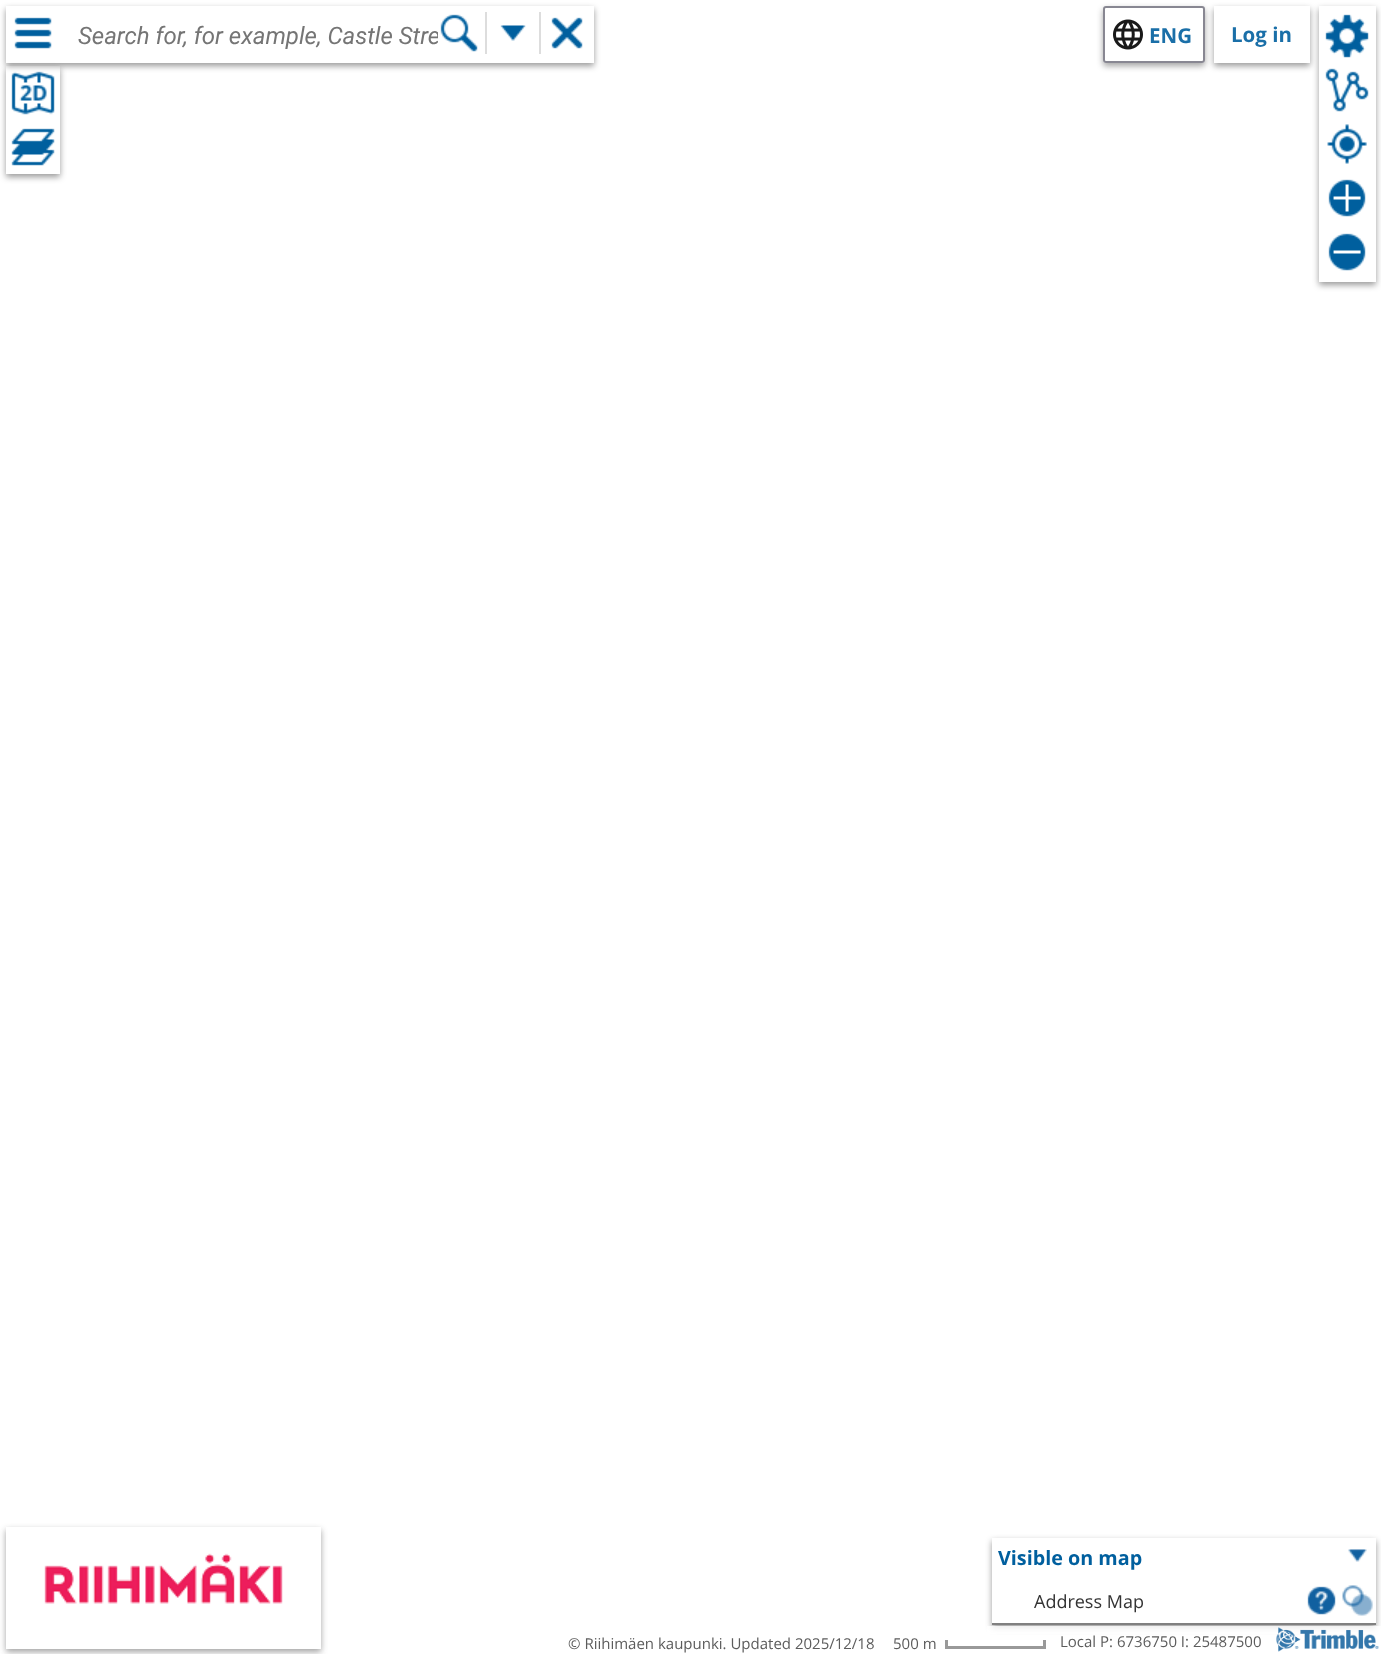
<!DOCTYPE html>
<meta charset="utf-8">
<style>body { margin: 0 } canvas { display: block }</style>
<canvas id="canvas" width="1381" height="1654"></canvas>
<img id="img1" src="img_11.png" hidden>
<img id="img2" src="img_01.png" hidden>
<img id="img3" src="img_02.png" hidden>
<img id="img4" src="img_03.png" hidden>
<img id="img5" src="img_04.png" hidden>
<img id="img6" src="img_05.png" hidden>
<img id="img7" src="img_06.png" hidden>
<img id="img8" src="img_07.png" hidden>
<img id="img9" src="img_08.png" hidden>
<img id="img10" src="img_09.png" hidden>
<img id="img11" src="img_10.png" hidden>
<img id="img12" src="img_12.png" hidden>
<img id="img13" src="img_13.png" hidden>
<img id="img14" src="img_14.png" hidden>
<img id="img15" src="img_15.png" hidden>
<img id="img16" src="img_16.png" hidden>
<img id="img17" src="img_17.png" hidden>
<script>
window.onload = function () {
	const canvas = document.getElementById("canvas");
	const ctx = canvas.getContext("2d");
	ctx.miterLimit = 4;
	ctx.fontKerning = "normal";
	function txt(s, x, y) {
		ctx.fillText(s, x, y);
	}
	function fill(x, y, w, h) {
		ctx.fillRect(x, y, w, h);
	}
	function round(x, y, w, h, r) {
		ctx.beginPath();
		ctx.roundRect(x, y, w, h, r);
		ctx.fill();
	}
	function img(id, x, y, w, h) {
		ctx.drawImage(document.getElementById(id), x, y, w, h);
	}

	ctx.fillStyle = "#FFFFFF";
	fill(0, 0, 1381, 1654);
	ctx.save();
	ctx.beginPath();
	ctx.moveTo(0, 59);
	ctx.lineTo(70, 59);
	ctx.lineTo(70, 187);
	ctx.lineTo(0, 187);
	ctx.closePath();
	ctx.moveTo(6, 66);
	ctx.lineTo(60, 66);
	ctx.lineTo(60, 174);
	ctx.lineTo(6, 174);
	ctx.closePath();
	ctx.clip("evenodd");
	ctx.fillStyle = "rgba(0, 0, 0, 0.4)";
	ctx.filter = "blur(3px)";
	ctx.beginPath();
	ctx.rect(6, 69, 54, 108);
	ctx.fill();
	ctx.filter = "none";
	ctx.restore();
	img("img1", 11, 71, 44, 44);
	ctx.save();
	ctx.beginPath();
	ctx.moveTo(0, 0);
	ctx.lineTo(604, 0);
	ctx.lineTo(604, 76);
	ctx.lineTo(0, 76);
	ctx.closePath();
	ctx.moveTo(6, 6);
	ctx.lineTo(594, 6);
	ctx.lineTo(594, 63);
	ctx.lineTo(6, 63);
	ctx.closePath();
	ctx.clip("evenodd");
	ctx.fillStyle = "rgba(0, 0, 0, 0.4)";
	ctx.filter = "blur(3px)";
	ctx.beginPath();
	ctx.rect(6, 9, 588, 57);
	ctx.fill();
	ctx.filter = "none";
	ctx.restore();
	img("img2", 14, 17, 38, 32);
	img("img3", 440, 14, 38, 38);
	ctx.fillStyle = "#DDDDDD";
	fill(485, 12, 2, 42);
	img("img4", 500, 25, 26, 16);
	fill(539, 12, 2, 42);
	img("img5", 551, 17, 32, 32);
	ctx.fillStyle = "rgba(0, 0, 0, 0.36)";
	ctx.filter = "blur(3px)";
	ctx.beginPath();
	ctx.roundRect(1103, 9, 102, 57, 3);
	ctx.fill();
	ctx.filter = "none";
	ctx.save();
	ctx.beginPath();
	ctx.moveTo(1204, 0);
	ctx.lineTo(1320, 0);
	ctx.lineTo(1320, 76);
	ctx.lineTo(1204, 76);
	ctx.closePath();
	ctx.moveTo(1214, 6);
	ctx.lineTo(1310, 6);
	ctx.lineTo(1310, 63);
	ctx.lineTo(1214, 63);
	ctx.closePath();
	ctx.clip("evenodd");
	ctx.fillStyle = "rgba(0, 0, 0, 0.4)";
	ctx.filter = "blur(3px)";
	ctx.beginPath();
	ctx.rect(1214, 9, 96, 57);
	ctx.fill();
	ctx.filter = "none";
	ctx.restore();
	ctx.fillStyle = "#FFFFFF";
	round(1103, 6, 102, 57, 3);
	img("img6", 1113, 19, 30, 31);
	ctx.beginPath();
	ctx.roundRect(1104, 7, 100, 55, 2);
	ctx.strokeStyle = "#888792";
	ctx.lineWidth = 2;
	ctx.stroke();
	ctx.fillStyle = "rgba(255, 255, 255, 0.9)";
	fill(1309, 6, 1, 57);
	ctx.fillStyle = "rgba(0, 0, 0, 0.4)";
	ctx.filter = "blur(3px)";
	ctx.beginPath();
	ctx.rect(1319, 9, 57, 276);
	ctx.fill();
	ctx.filter = "none";
	ctx.fillStyle = "#FFFFFF";
	fill(1319, 6, 57, 276);
	img("img7", 1325, 14, 44, 44);
	img("img8", 1325, 68, 44, 44);
	img("img9", 1327, 124, 40, 40);
	img("img10", 1328, 179, 38, 38);
	img("img11", 1328, 233, 38, 38);
	img("img12", 11, 128, 44, 38);
	ctx.fillStyle = "rgba(26, 26, 26, 0.4)";
	ctx.filter = "blur(3px)";
	ctx.beginPath();
	ctx.rect(6, 1530, 315, 122);
	ctx.fill();
	ctx.filter = "none";
	ctx.fillStyle = "#FFFFFF";
	fill(6, 1527, 315, 122);
	img("img13", 44, 1553, 239, 51);
	ctx.fillStyle = "rgba(0, 0, 0, 0.4)";
	ctx.filter = "blur(3px)";
	ctx.beginPath();
	ctx.rect(992, 1541, 384, 87);
	ctx.fill();
	ctx.filter = "none";
	ctx.fillStyle = "#FFFFFF";
	fill(992, 1538, 384, 85);
	img("img14", 1348, 1549, 19, 13);
	ctx.fillStyle = "#808080";
	fill(992, 1623, 384, 2);
	img("img15", 1307, 1586, 29, 29);
	img("img16", 1342, 1585, 31, 31);
	ctx.fillStyle = "rgba(255, 255, 255, 0.8)";
	fill(987, 1626, 394, 8);
	ctx.fillStyle = "#999999";
	fill(1043, 1640, 3, 9);
	fill(945, 1646, 101, 3);
	fill(945, 1640, 3, 9);
	img("img17", 1276, 1627, 103, 25);
	ctx.save();
	ctx.beginPath();
	ctx.rect(78, 21, 360, 29);
	ctx.clip();
	ctx.font = "italic 24px Roboto";
	ctx.fillStyle = "#757575";
	txt("Search for, for example, Castle Stre", 78, 44);
	ctx.restore();
	ctx.font = "bold 20.5px Open Sans";
	ctx.fillStyle = "#1A6FA8";
	txt("ENG", 1149, 43);
	txt("Log in", 1231, 42);
	ctx.font = "bold 19.75px Open Sans";
	ctx.fillStyle = "#005F9E";
	txt("Visible on map", 998, 1565);
	ctx.font = "18px Open Sans";
	ctx.fillStyle = "#333333";
	txt("Address Map", 1034, 1608);
	ctx.font = "15px Open Sans";
	ctx.fillStyle = "#5C5C5C";
	txt("© Riihimäen kaupunki. Updated 2025/12/18", 568, 1649);
	txt("500 m", 893, 1649);
	txt("Local P: 6736750 I: 25487500", 1060, 1647);
};
</script>
